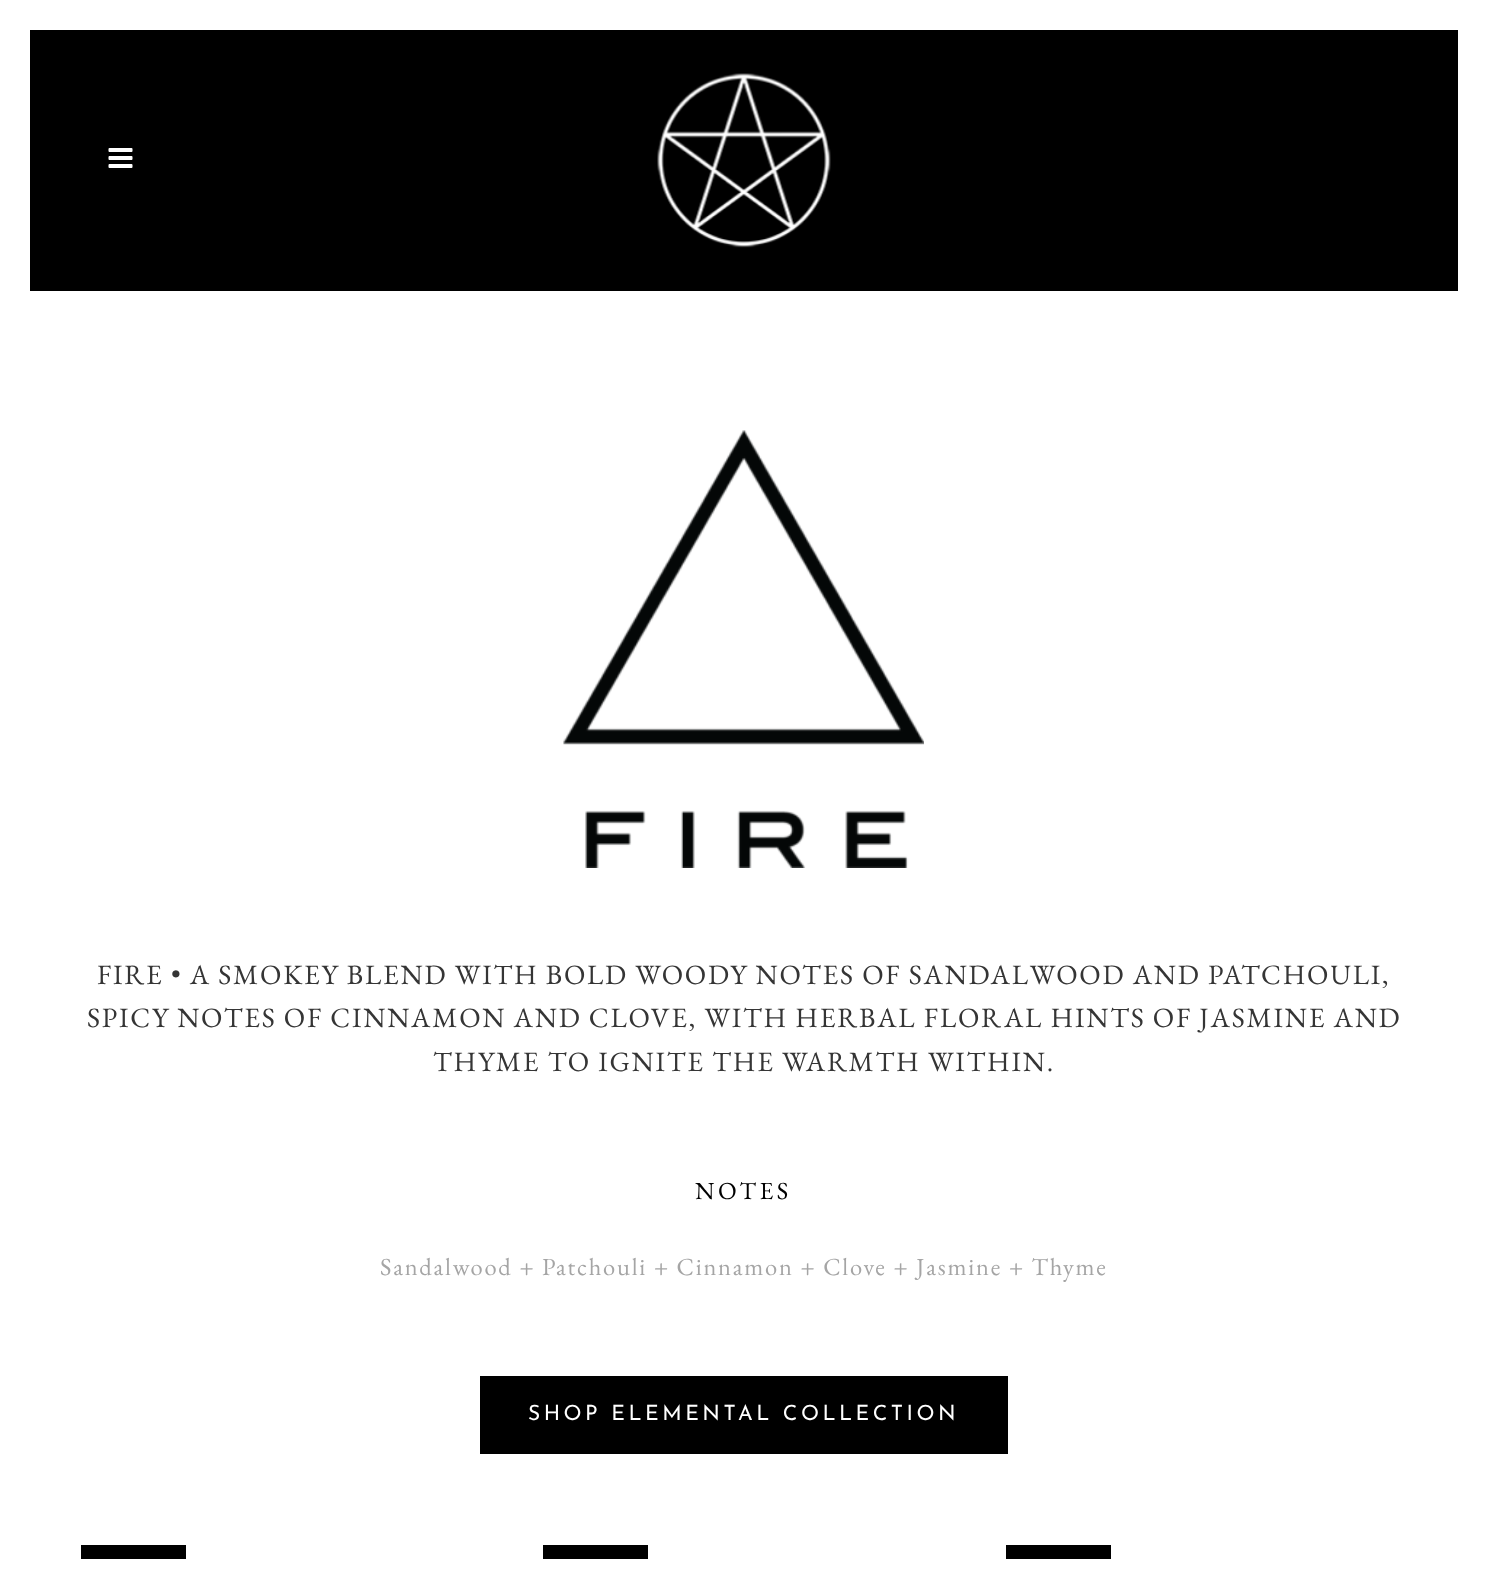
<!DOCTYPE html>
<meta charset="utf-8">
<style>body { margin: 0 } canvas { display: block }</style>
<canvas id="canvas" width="1487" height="1589"></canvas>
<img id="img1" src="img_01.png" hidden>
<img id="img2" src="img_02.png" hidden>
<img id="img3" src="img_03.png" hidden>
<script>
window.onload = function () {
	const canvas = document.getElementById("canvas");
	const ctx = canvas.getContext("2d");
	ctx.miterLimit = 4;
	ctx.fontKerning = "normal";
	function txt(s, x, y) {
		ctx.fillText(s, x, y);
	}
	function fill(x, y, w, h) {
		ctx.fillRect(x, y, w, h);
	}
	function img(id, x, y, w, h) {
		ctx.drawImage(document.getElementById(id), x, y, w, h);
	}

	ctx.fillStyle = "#FFFFFF";
	fill(0, 0, 1487, 1589);
	ctx.fillStyle = "#000000";
	fill(30, 30, 1428, 261);
	img("img1", 108, 148, 25, 20);
	img("img2", 657, 73, 174, 175);
	img("img3", 563, 430, 361, 438);
	fill(480, 1376, 528, 78);
	fill(81, 1545, 105, 14);
	fill(543, 1545, 105, 14);
	fill(1006, 1545, 105, 14);
	ctx.letterSpacing = "1.75px";
	ctx.font = "28px EB Garamond";
	ctx.fillStyle = "#353535";
	txt("FIRE • A SMOKEY BLEND WITH BOLD WOODY NOTES OF SANDALWOOD AND PATCHOULI,", 97, 984);
	txt("SPICY NOTES OF CINNAMON AND CLOVE, WITH HERBAL FLORAL HINTS OF JASMINE AND", 87, 1027);
	txt("THYME TO IGNITE THE WARMTH WITHIN.", 433, 1071);
	ctx.letterSpacing = "3.5px";
	ctx.font = "24.5px EB Garamond";
	ctx.fillStyle = "#000000";
	txt("NOTES", 695, 1199);
	ctx.letterSpacing = "1.75px";
	ctx.fillStyle = "#A5A5A5";
	txt("Sandalwood + Patchouli + Cinnamon + Clove + Jasmine + Thyme", 380, 1275);
	ctx.letterSpacing = "3.5px";
	ctx.font = "21px Josefin Sans";
	ctx.fillStyle = "#FFFFFF";
	txt("SHOP ELEMENTAL COLLECTION", 528, 1420);
};
</script>
